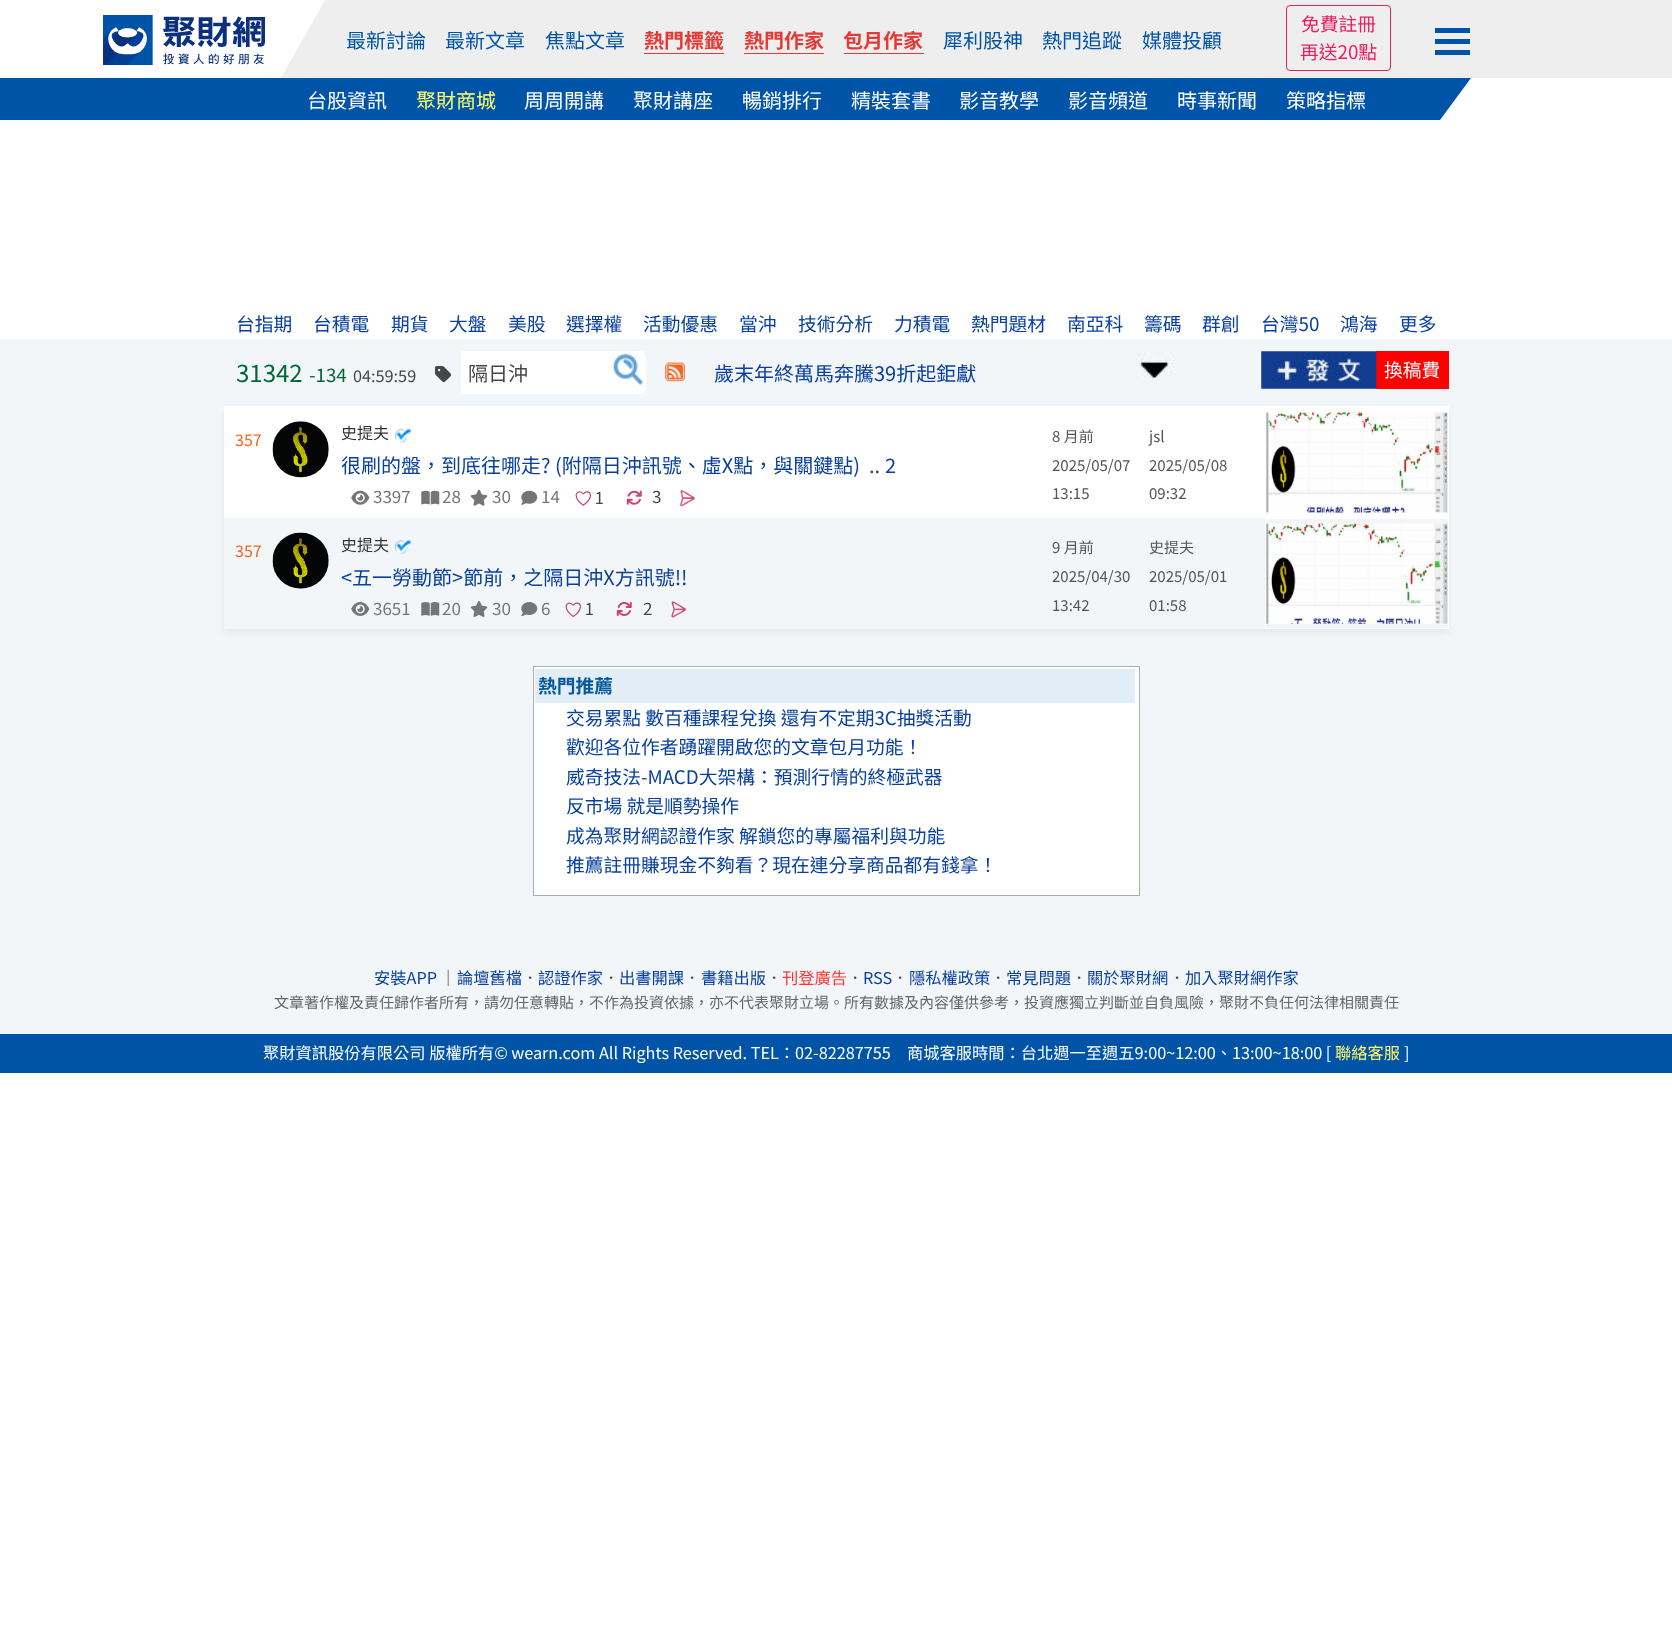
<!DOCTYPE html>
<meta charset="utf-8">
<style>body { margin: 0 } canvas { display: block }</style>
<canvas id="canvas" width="1672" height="1640"></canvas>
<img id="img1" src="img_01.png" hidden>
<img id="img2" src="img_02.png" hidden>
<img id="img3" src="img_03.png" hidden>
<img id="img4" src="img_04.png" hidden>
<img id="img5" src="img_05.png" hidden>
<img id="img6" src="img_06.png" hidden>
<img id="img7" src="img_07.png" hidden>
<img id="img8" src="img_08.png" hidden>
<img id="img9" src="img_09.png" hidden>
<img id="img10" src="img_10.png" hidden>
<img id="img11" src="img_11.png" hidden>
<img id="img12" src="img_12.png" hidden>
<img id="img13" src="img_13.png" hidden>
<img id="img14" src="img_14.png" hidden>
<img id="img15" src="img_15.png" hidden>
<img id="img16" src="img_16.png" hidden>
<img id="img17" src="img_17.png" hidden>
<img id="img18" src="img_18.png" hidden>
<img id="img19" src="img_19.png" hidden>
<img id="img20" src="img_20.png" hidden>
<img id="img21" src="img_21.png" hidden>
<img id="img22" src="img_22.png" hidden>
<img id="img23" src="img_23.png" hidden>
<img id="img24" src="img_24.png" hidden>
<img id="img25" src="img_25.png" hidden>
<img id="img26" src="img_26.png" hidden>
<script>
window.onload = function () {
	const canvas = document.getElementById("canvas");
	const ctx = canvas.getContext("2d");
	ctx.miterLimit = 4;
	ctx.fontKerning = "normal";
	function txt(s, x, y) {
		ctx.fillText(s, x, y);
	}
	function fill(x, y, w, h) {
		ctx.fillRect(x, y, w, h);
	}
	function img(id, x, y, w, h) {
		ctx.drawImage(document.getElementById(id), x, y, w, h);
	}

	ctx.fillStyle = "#FFFFFF";
	fill(0, 0, 1672, 1640);
	ctx.fillStyle = "#EEEEEE";
	fill(281, 0, 1391, 78);
	img("img1", 103, 15, 162, 50);
	ctx.fillStyle = "#FFFFFF";
	ctx.beginPath();
	ctx.moveTo(281, 78);
	ctx.lineTo(281, 0);
	ctx.lineTo(325, 0);
	ctx.closePath();
	ctx.fill();
	ctx.fillStyle = "#E53935";
	fill(644, 53, 80, 1);
	fill(744, 53, 80, 1);
	fill(844, 53, 80, 1);
	ctx.beginPath();
	ctx.roundRect(1286.5, 5.5, 104, 65, 3.5);
	ctx.strokeStyle = "#E91E63";
	ctx.stroke();
	ctx.fillStyle = "#0054A7";
	fill(1435, 28, 35, 5);
	fill(1435, 39, 35, 5);
	fill(1435, 50, 35, 5);
	fill(0, 78, 1471, 42);
	ctx.fillStyle = "#FFFFFF";
	ctx.beginPath();
	ctx.moveTo(1471, 78);
	ctx.lineTo(1471, 120);
	ctx.lineTo(1440, 120);
	ctx.closePath();
	ctx.fill();
	ctx.fillStyle = "#F3F6F9";
	fill(0, 339, 1672, 695);
	img("img2", 435, 366, 16, 16);
	ctx.fillStyle = "#FFFFFF";
	fill(461, 351, 150, 43);
	ctx.beginPath();
	ctx.roundRect(611, 351, 35, 43, [0, 6, 6, 0]);
	ctx.fill();
	img("img3", 613, 353, 30, 33);
	img("img4", 665, 362, 20, 20);
	img("img5", 1136, 353, 38, 25);
	ctx.fillStyle = "#FF0000";
	fill(1376, 351, 73, 38);
	img("img6", 1261, 351, 116, 38);
	ctx.fillStyle = "rgba(0, 0, 0, 0.05)";
	ctx.filter = "blur(3px)";
	ctx.beginPath();
	ctx.rect(224, 410, 1225, 223);
	ctx.fill();
	ctx.filter = "none";
	ctx.fillStyle = "#FFFFFF";
	fill(224, 406, 1225, 112);
	img("img7", 272, 421, 57, 57);
	img("img8", 395, 428, 17, 15);
	img("img9", 351, 490, 19, 15);
	img("img10", 421, 490, 19, 15);
	img("img11", 470, 489, 18, 17);
	img("img12", 521, 490, 17, 15);
	img("img13", 575, 491, 28, 15);
	img("img14", 626, 490, 16, 15);
	img("img15", 680, 490, 15, 17);
	img("img16", 1266, 412, 182, 101);
	ctx.fillStyle = "#F3F6F9";
	fill(224, 518, 1224, 111);
	img("img17", 272, 532, 57, 57);
	img("img18", 395, 539, 17, 15);
	img("img19", 351, 602, 19, 14);
	img("img20", 421, 602, 19, 14);
	img("img21", 470, 601, 18, 16);
	img("img22", 521, 602, 17, 14);
	img("img23", 565, 602, 28, 15);
	img("img24", 616, 602, 16, 14);
	img("img25", 671, 601, 16, 17);
	ctx.strokeStyle = "#FFFFFF";
	ctx.strokeRect(1265.5, 518.5, 183, 110);
	img("img26", 1266, 523, 182, 101);
	ctx.fillStyle = "#FFFFFF";
	fill(534, 667, 605, 228);
	ctx.fillStyle = "#ADADAD";
	fill(533, 666, 607, 1);
	fill(1139, 666, 1, 230);
	fill(533, 895, 607, 1);
	fill(533, 666, 1, 230);
	ctx.fillStyle = "#E1EDF7";
	fill(535, 669, 600, 34);
	ctx.fillStyle = "#0054A7";
	fill(0, 1034, 1672, 39);
	ctx.font = "20px Noto Sans TC";
	txt("最新討論", 346, 48);
	txt("最新文章", 445, 48);
	txt("焦點文章", 545, 48);
	ctx.font = "bold 20px Noto Sans TC";
	ctx.fillStyle = "#E53935";
	txt("熱門標籤", 644, 48);
	txt("熱門作家", 744, 48);
	txt("包月作家", 843, 48);
	ctx.font = "20px Noto Sans TC";
	ctx.fillStyle = "#0054A7";
	txt("犀利股神", 943, 48);
	txt("熱門追蹤", 1042, 48);
	txt("媒體投顧", 1142, 48);
	ctx.font = "18.75px Noto Sans TC";
	ctx.fillStyle = "#E91E63";
	txt("免費註冊", 1301, 31);
	txt("再送20點", 1300, 59);
	ctx.font = "20px Noto Sans TC";
	ctx.fillStyle = "#FFFFFF";
	txt("台股資訊", 307, 108);
	ctx.fillStyle = "#FFFF66";
	txt("聚財商城", 416, 108);
	ctx.fillStyle = "#FFFFFF";
	txt("周周開講", 524, 108);
	txt("聚財講座", 633, 108);
	txt("暢銷排行", 742, 108);
	txt("精裝套書", 851, 108);
	txt("影音教學", 959, 108);
	txt("影音頻道", 1068, 108);
	txt("時事新聞", 1177, 108);
	txt("策略指標", 1286, 108);
	ctx.font = "18.75px Noto Sans TC";
	ctx.fillStyle = "#08409C";
	txt("台指期", 236, 331);
	txt("台積電", 313, 331);
	txt("期貨", 391, 331);
	txt("大盤", 449, 331);
	txt("美股", 508, 331);
	txt("選擇權", 566, 331);
	txt("活動優惠", 643, 331);
	txt("當沖", 739, 331);
	txt("技術分析", 798, 331);
	txt("力積電", 894, 331);
	txt("熱門題材", 971, 331);
	txt("南亞科", 1067, 331);
	txt("籌碼", 1144, 331);
	txt("群創", 1202, 331);
	txt("台灣50", 1261, 331);
	txt("鴻海", 1340, 331);
	txt("更多", 1399, 331);
	ctx.font = "24px Noto Sans TC";
	ctx.fillStyle = "#006636";
	txt("31342", 236, 382);
	ctx.font = "18.75px Noto Sans TC";
	txt("-134", 309, 382);
	ctx.font = "16.25px Noto Sans TC";
	ctx.fillStyle = "#464646";
	txt("04:59:59", 353, 382);
	ctx.font = "20px Noto Sans TC";
	txt("隔日沖", 468, 381);
	ctx.fillStyle = "#08409C";
	txt("歲末年終萬馬奔騰39折起鉅獻", 714, 381);
	ctx.font = "18.75px Noto Sans TC";
	ctx.fillStyle = "#FFFFFF";
	txt("換稿費", 1384, 377);
	ctx.font = "16px Noto Sans TC";
	ctx.fillStyle = "#F26522";
	txt("357", 235, 446);
	ctx.fillStyle = "#333333";
	txt("史提夫", 341, 439);
	ctx.font = "15px Noto Sans TC";
	ctx.fillStyle = "#555555";
	txt("8 月前", 1052, 442);
	txt("2025/05/07", 1052, 471);
	txt("13:15", 1052, 499);
	ctx.font = "20px Noto Sans TC";
	ctx.fillStyle = "#08409C";
	txt("很刷的盤，到底往哪走? (附隔日沖訊號、虛X點，與關鍵點)", 341, 473);
	ctx.fillStyle = "#464646";
	txt("..", 869, 473);
	ctx.fillStyle = "#08409C";
	txt("2", 885, 473);
	ctx.font = "17px Noto Sans TC";
	ctx.fillStyle = "#757576";
	txt("3397", 373, 503);
	txt("28", 442, 503);
	txt("30", 492, 503);
	txt("14", 541, 503);
	ctx.fillStyle = "#464646";
	txt("3", 652, 503);
	ctx.font = "15px Noto Sans TC";
	ctx.fillStyle = "#555555";
	txt("jsl", 1149, 442);
	txt("2025/05/08", 1149, 471);
	txt("09:32", 1149, 499);
	ctx.font = "16px Noto Sans TC";
	ctx.fillStyle = "#F26522";
	txt("357", 235, 557);
	ctx.fillStyle = "#333333";
	txt("史提夫", 341, 551);
	ctx.font = "15px Noto Sans TC";
	ctx.fillStyle = "#555555";
	txt("9 月前", 1052, 553);
	txt("2025/04/30", 1052, 582);
	txt("13:42", 1052, 611);
	ctx.font = "20px Noto Sans TC";
	ctx.fillStyle = "#08409C";
	txt("<五一勞動節>節前，之隔日沖X方訊號!!", 341, 585);
	ctx.font = "17px Noto Sans TC";
	ctx.fillStyle = "#757576";
	txt("3651", 373, 615);
	txt("20", 442, 615);
	txt("30", 492, 615);
	txt("6", 541, 615);
	ctx.fillStyle = "#464646";
	txt("2", 643, 615);
	ctx.font = "15px Noto Sans TC";
	ctx.fillStyle = "#555555";
	txt("史提夫", 1149, 553);
	txt("2025/05/01", 1149, 582);
	txt("01:58", 1149, 611);
	ctx.font = "bold 18.75px Noto Sans TC";
	ctx.fillStyle = "#08599C";
	txt("熱門推薦", 538, 693);
	ctx.font = "18.75px Noto Sans TC";
	ctx.fillStyle = "#08409C";
	txt("交易累點 數百種課程兌換 還有不定期3C抽獎活動", 566, 725);
	txt("歡迎各位作者踴躍開啟您的文章包月功能！", 566, 754);
	txt("威奇技法-MACD大架構：預測行情的終極武器", 566, 784);
	txt("反市場 就是順勢操作", 566, 813);
	txt("成為聚財網認證作家 解鎖您的專屬福利與功能", 566, 843);
	txt("推薦註冊賺現金不夠看？現在連分享商品都有錢拿！", 566, 872);
	ctx.font = "16.25px Noto Sans TC";
	txt("安裝APP", 374, 984);
	ctx.fillStyle = "#464646";
	txt("｜", 440, 984);
	ctx.fillStyle = "#08409C";
	txt("論壇舊檔", 457, 984);
	ctx.fillStyle = "#464646";
	txt("．", 522, 984);
	ctx.fillStyle = "#08409C";
	txt("認證作家", 538, 984);
	ctx.fillStyle = "#464646";
	txt("．", 603, 984);
	ctx.fillStyle = "#08409C";
	txt("出書開課", 619, 984);
	ctx.fillStyle = "#464646";
	txt("．", 684, 984);
	ctx.fillStyle = "#08409C";
	txt("書籍出版", 701, 984);
	ctx.fillStyle = "#464646";
	txt("．", 766, 984);
	ctx.fillStyle = "#FF3333";
	txt("刊登廣告", 782, 984);
	ctx.fillStyle = "#464646";
	txt("．", 847, 984);
	ctx.fillStyle = "#08409C";
	txt("RSS", 863, 984);
	ctx.fillStyle = "#464646";
	txt("．", 892, 984);
	ctx.fillStyle = "#08409C";
	txt("隱私權政策", 909, 984);
	ctx.fillStyle = "#464646";
	txt("．", 990, 984);
	ctx.fillStyle = "#08409C";
	txt("常見問題", 1006, 984);
	ctx.fillStyle = "#464646";
	txt("．", 1071, 984);
	ctx.fillStyle = "#08409C";
	txt("關於聚財網", 1087, 984);
	ctx.fillStyle = "#464646";
	txt("．", 1169, 984);
	ctx.fillStyle = "#08409C";
	txt("加入聚財網作家", 1185, 984);
	ctx.font = "15px Noto Sans TC";
	ctx.fillStyle = "#666666";
	txt("文章著作權及責任歸作者所有，請勿任意轉貼，不作為投資依據，亦不代表聚財立場。所有數據及內容僅供參考，投資應獨立判斷並自負風險，聚財不負任何法律相關責任", 274, 1008);
	ctx.font = "16.25px Noto Sans TC";
	ctx.fillStyle = "#FFFFFF";
	txt("聚財資訊股份有限公司 版權所有© wearn.com All Rights Reserved. TEL：02-82287755　商城客服時間：台北週一至週五9:00~12:00、13:00~18:00 [", 263, 1059);
	ctx.fillStyle = "#FFF568";
	txt("聯絡客服", 1335, 1059);
	ctx.fillStyle = "#FFFFFF";
	txt("]", 1404, 1059);
};
</script>
